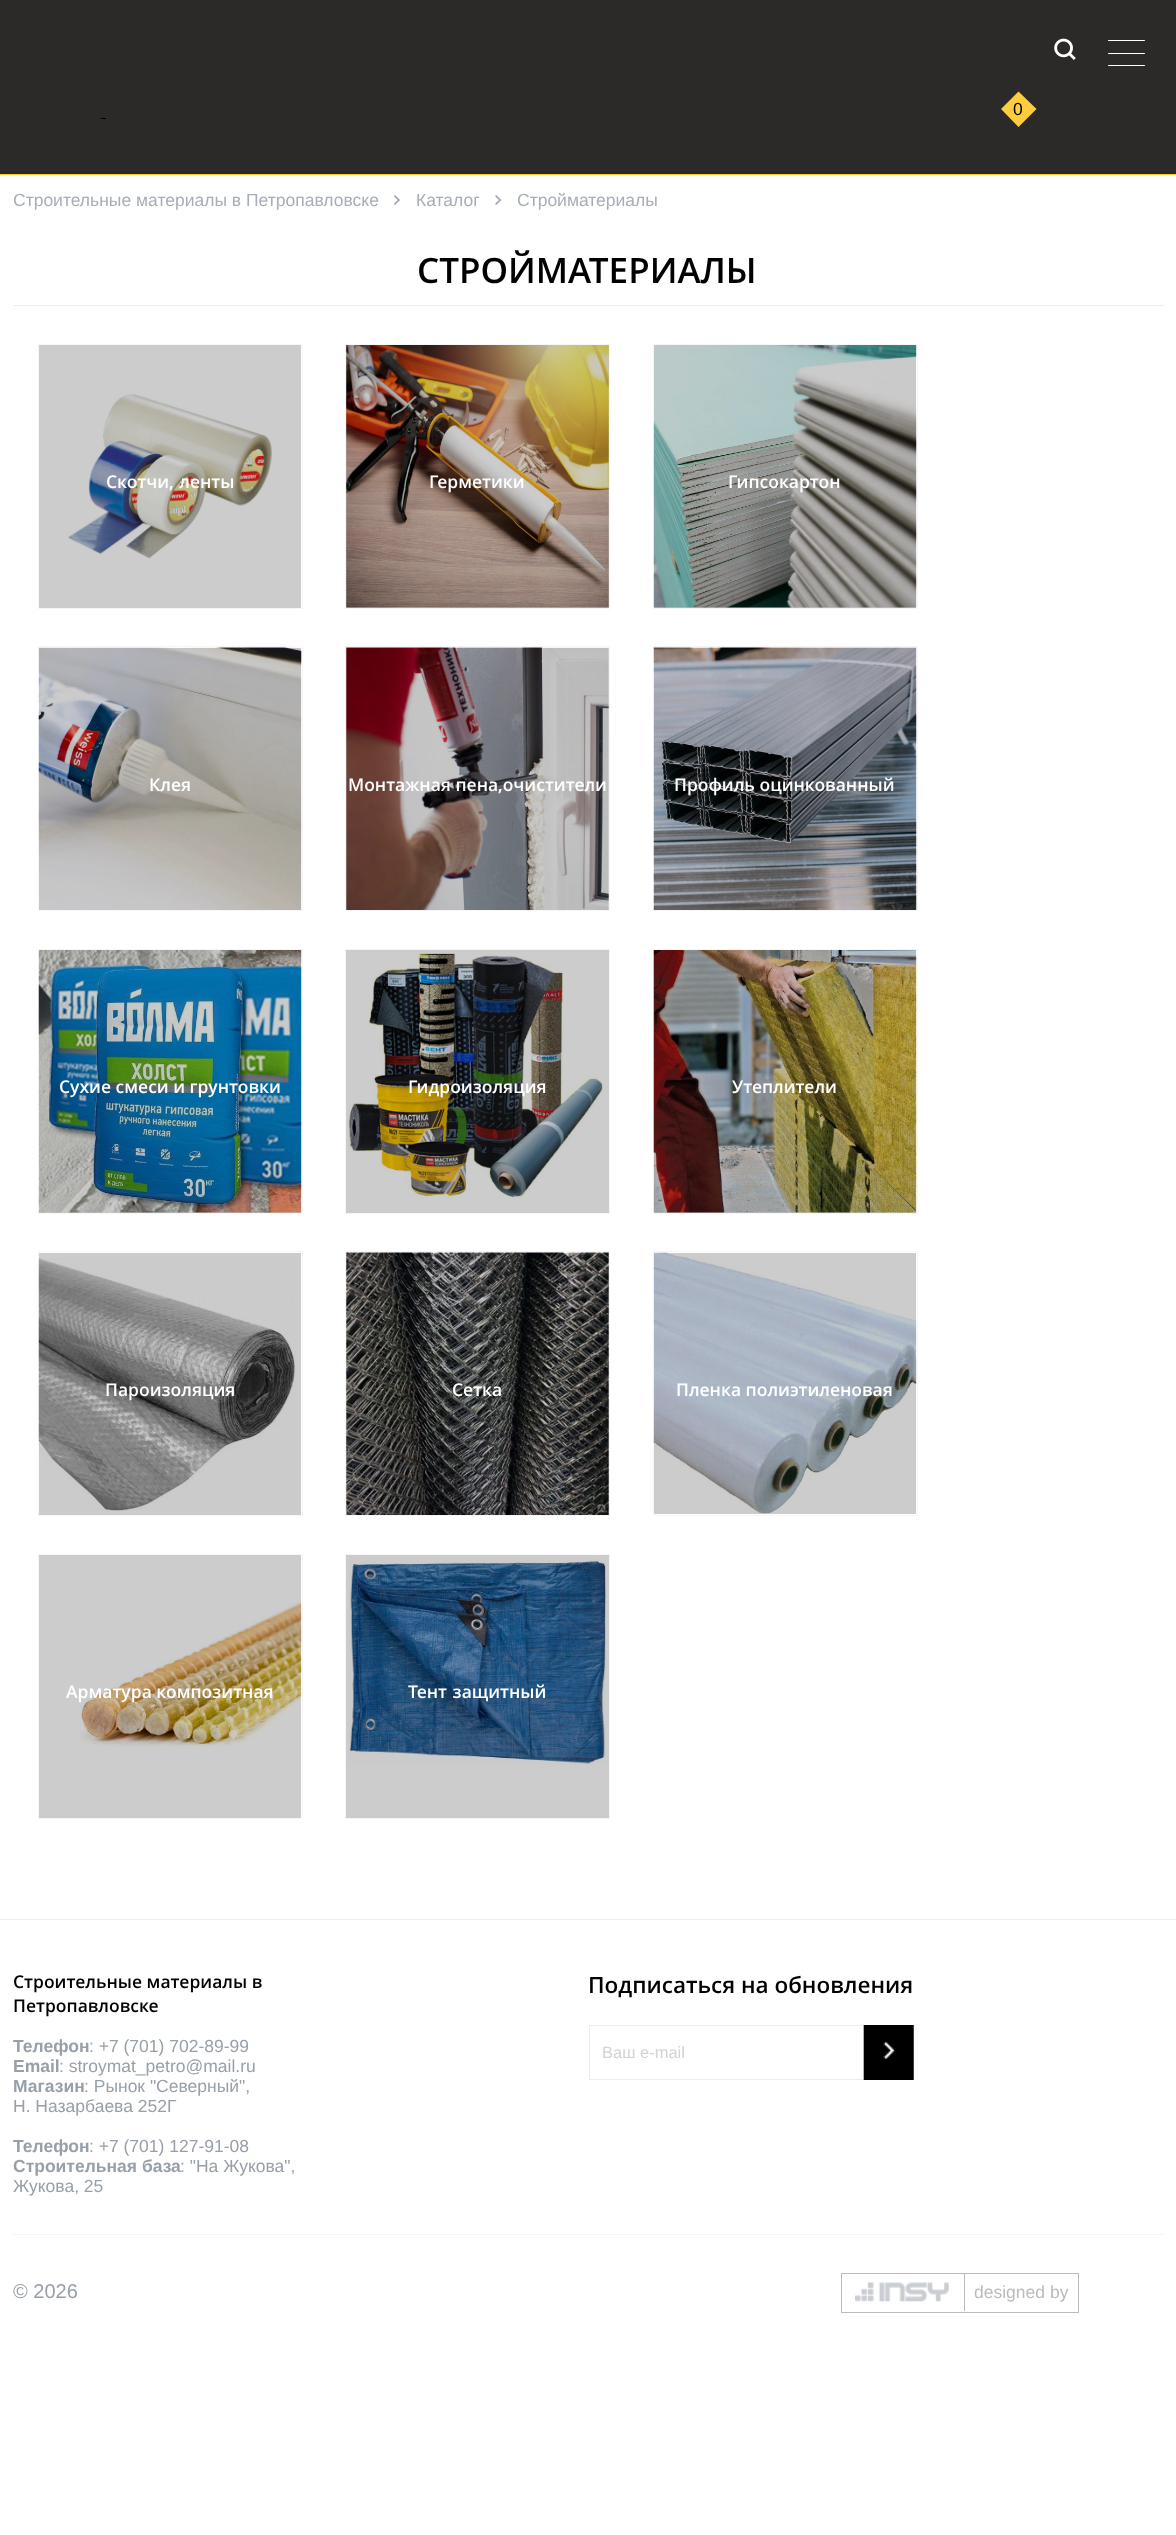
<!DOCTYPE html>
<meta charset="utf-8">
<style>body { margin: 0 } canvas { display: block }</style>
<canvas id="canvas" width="1176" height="2535"></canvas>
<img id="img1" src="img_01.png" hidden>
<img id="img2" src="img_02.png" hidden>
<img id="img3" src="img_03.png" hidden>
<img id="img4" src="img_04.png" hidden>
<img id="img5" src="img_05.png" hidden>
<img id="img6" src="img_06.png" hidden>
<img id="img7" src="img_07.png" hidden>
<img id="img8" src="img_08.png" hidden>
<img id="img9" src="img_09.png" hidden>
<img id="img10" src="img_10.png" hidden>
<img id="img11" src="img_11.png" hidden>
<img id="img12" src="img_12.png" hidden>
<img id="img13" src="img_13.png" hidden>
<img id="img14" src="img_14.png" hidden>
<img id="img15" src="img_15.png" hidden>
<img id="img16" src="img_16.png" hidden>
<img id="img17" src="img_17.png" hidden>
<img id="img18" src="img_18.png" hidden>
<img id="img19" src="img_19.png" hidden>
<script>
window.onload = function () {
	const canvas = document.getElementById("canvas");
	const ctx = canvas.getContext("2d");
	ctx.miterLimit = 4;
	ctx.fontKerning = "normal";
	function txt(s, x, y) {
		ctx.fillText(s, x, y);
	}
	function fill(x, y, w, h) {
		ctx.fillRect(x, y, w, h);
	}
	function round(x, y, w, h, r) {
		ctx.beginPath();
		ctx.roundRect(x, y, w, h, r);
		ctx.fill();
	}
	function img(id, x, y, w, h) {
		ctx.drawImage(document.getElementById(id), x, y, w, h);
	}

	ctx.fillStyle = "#FFFFFF";
	fill(0, 0, 1176, 2535);
	ctx.fillStyle = "#CCCCCC";
	fill(39, 1555, 262, 263);
	fill(39, 1253, 262, 262);
	fill(654, 1212, 262, 1);
	fill(39, 1212, 262, 1);
	fill(654, 607, 262, 1);
	fill(39, 345, 262, 263);
	ctx.fillStyle = "#2B2A29";
	fill(0, 0, 1176, 174);
	ctx.fillStyle = "#FECC2A";
	fill(0, 174, 1176, 1);
	img("img1", 1054, 38, 22, 22);
	ctx.fillStyle = "#FFFFFF";
	round(1108, 53, 37, 1, 0.5);
	round(1108, 40, 37, 1, 0.5);
	round(1108, 65, 37, 1, 0.5);
	ctx.fillStyle = "#FECC3C";
	ctx.beginPath();
	ctx.moveTo(1018.5, 91.5);
	ctx.lineTo(1036.5, 109);
	ctx.lineTo(1018.5, 127);
	ctx.lineTo(1001, 109);
	ctx.closePath();
	ctx.fill();
	ctx.fillStyle = "#000000";
	fill(101, 118, 5, 1);
	img("img2", 393, 195, 7, 10);
	img("img3", 495, 195, 7, 10);
	ctx.fillStyle = "#EBEDF1";
	fill(13, 305, 1151, 1);
	ctx.strokeStyle = "#F7F6F7";
	ctx.strokeRect(38.5, 344.5, 264, 264);
	img("img4", 68, 394, 204, 165);
	ctx.fillStyle = "#CCCCCC";
	ctx.beginPath();
	ctx.rect(345.5, 344.5, 264, 264);
	ctx.fill();
	ctx.stroke();
	img("img5", 346, 345, 263, 263);
	ctx.strokeRect(653.5, 344.5, 264, 264);
	img("img6", 653, 345, 264, 263);
	ctx.strokeRect(38.5, 646.5, 264, 264);
	img("img7", 38, 647, 264, 263);
	ctx.strokeRect(345.5, 646.5, 264, 264);
	img("img8", 346, 647, 263, 263);
	ctx.strokeRect(653.5, 646.5, 264, 264);
	img("img9", 653, 647, 264, 263);
	ctx.strokeRect(38.5, 949.5, 264, 264);
	img("img10", 38, 950, 264, 263);
	ctx.beginPath();
	ctx.rect(345.5, 949.5, 264, 264);
	ctx.fill();
	ctx.stroke();
	img("img11", 346, 951, 258, 248);
	ctx.strokeRect(653.5, 949.5, 264, 264);
	img("img12", 653, 950, 264, 263);
	ctx.strokeRect(38.5, 1251.5, 264, 264);
	img("img13", 38, 1258, 258, 253);
	ctx.strokeRect(345.5, 1251.5, 264, 264);
	img("img14", 346, 1252, 263, 263);
	ctx.strokeRect(653.5, 1251.5, 264, 264);
	img("img15", 653, 1252, 264, 262);
	ctx.strokeRect(38.5, 1554.5, 264, 264);
	img("img16", 80, 1600, 222, 147);
	ctx.beginPath();
	ctx.rect(345.5, 1554.5, 264, 264);
	ctx.fill();
	ctx.stroke();
	img("img17", 349, 1559, 258, 206);
	ctx.fillStyle = "#EBEDF1";
	fill(0, 1919, 1176, 1);
	ctx.strokeStyle = "#EBEDF1";
	ctx.strokeRect(589.5, 2025.5, 274, 54);
	img("img18", 863, 2025, 51, 55);
	ctx.fillStyle = "#F2F6FB";
	fill(13, 2234, 1151, 1);
	ctx.strokeStyle = "#BBBBBB";
	ctx.strokeRect(841.5, 2273.5, 237, 39);
	img("img19", 855, 2282, 94, 20);
	ctx.fillStyle = "#BBBBBB";
	fill(964, 2274, 1, 37);
	ctx.font = "17.5px Liberation Sans";
	ctx.fillStyle = "#000000";
	txt("0", 1013, 115);
	ctx.fillStyle = "#A7AEB8";
	txt("Строительные материалы в Петропавловске", 13, 206);
	txt("Каталог", 416, 206);
	txt("Стройматериалы", 517, 206);
	ctx.font = "600 35px Open Sans";
	ctx.fillStyle = "#000000";
	txt("СТРОЙМАТЕРИАЛЫ", 417, 283);
	ctx.wordSpacing = "1px";
	ctx.font = "600 17.5px Open Sans";
	ctx.fillStyle = "#FFFFFF";
	txt("Скотчи, ленты", 106, 488);
	ctx.wordSpacing = "0px";
	txt("Герметики", 429, 488);
	txt("Гипсокартон", 728, 488);
	txt("Клея", 149, 791);
	txt("Монтажная пена,очистители", 348, 791);
	txt("Профиль оцинкованный", 674, 791);
	txt("Сухие смеси и грунтовки", 59, 1093);
	txt("Гидроизоляция", 408, 1093);
	txt("Утеплители", 732, 1093);
	txt("Пароизоляция", 105, 1396);
	txt("Сетка", 452, 1396);
	txt("Пленка полиэтиленовая", 676, 1396);
	txt("Арматура композитная", 66, 1698);
	ctx.wordSpacing = "1px";
	txt("Тент защитный", 408, 1698);
	ctx.wordSpacing = "0px";
	ctx.fillStyle = "#000000";
	txt("Строительные материалы в", 13, 1988);
	txt("Петропавловске", 13, 2012);
	ctx.font = "bold 17.5px Liberation Sans";
	ctx.fillStyle = "#979FA8";
	txt("Телефон", 13, 2052);
	ctx.font = "17.5px Liberation Sans";
	txt(": +7 (701) 702-89-99", 89, 2052);
	ctx.font = "bold 17.5px Liberation Sans";
	txt("Email", 13, 2072);
	ctx.font = "17.5px Liberation Sans";
	txt(": stroymat_petro@mail.ru", 59, 2072);
	ctx.font = "bold 17.5px Liberation Sans";
	txt("Магазин", 13, 2092);
	ctx.font = "17.5px Liberation Sans";
	txt(": Рынок \"Северный\",", 84, 2092);
	txt("Н. Назарбаева 252Г", 13, 2112);
	ctx.font = "bold 17.5px Liberation Sans";
	txt("Телефон", 13, 2152);
	ctx.font = "17.5px Liberation Sans";
	txt(": +7 (701) 127-91-08", 89, 2152);
	ctx.font = "bold 17.5px Liberation Sans";
	txt("Cтроительная база", 13, 2172);
	ctx.font = "17.5px Liberation Sans";
	txt(": \"На Жукова\",", 180, 2172);
	txt("Жукова, 25", 13, 2192);
	ctx.font = "600 22.5px Open Sans";
	ctx.fillStyle = "#000000";
	txt("Подписаться на обновления", 588, 1993);
	ctx.font = "16.5px Liberation Sans";
	ctx.fillStyle = "#D3D3D3";
	txt("Ваш e-mail", 602, 2058);
	ctx.font = "20px Liberation Sans";
	ctx.fillStyle = "#979FA8";
	txt("© 2026", 13, 2298);
	ctx.font = "17.5px Liberation Sans";
	ctx.fillStyle = "#BBBBBB";
	txt("designed by", 974, 2298);
};
</script>
